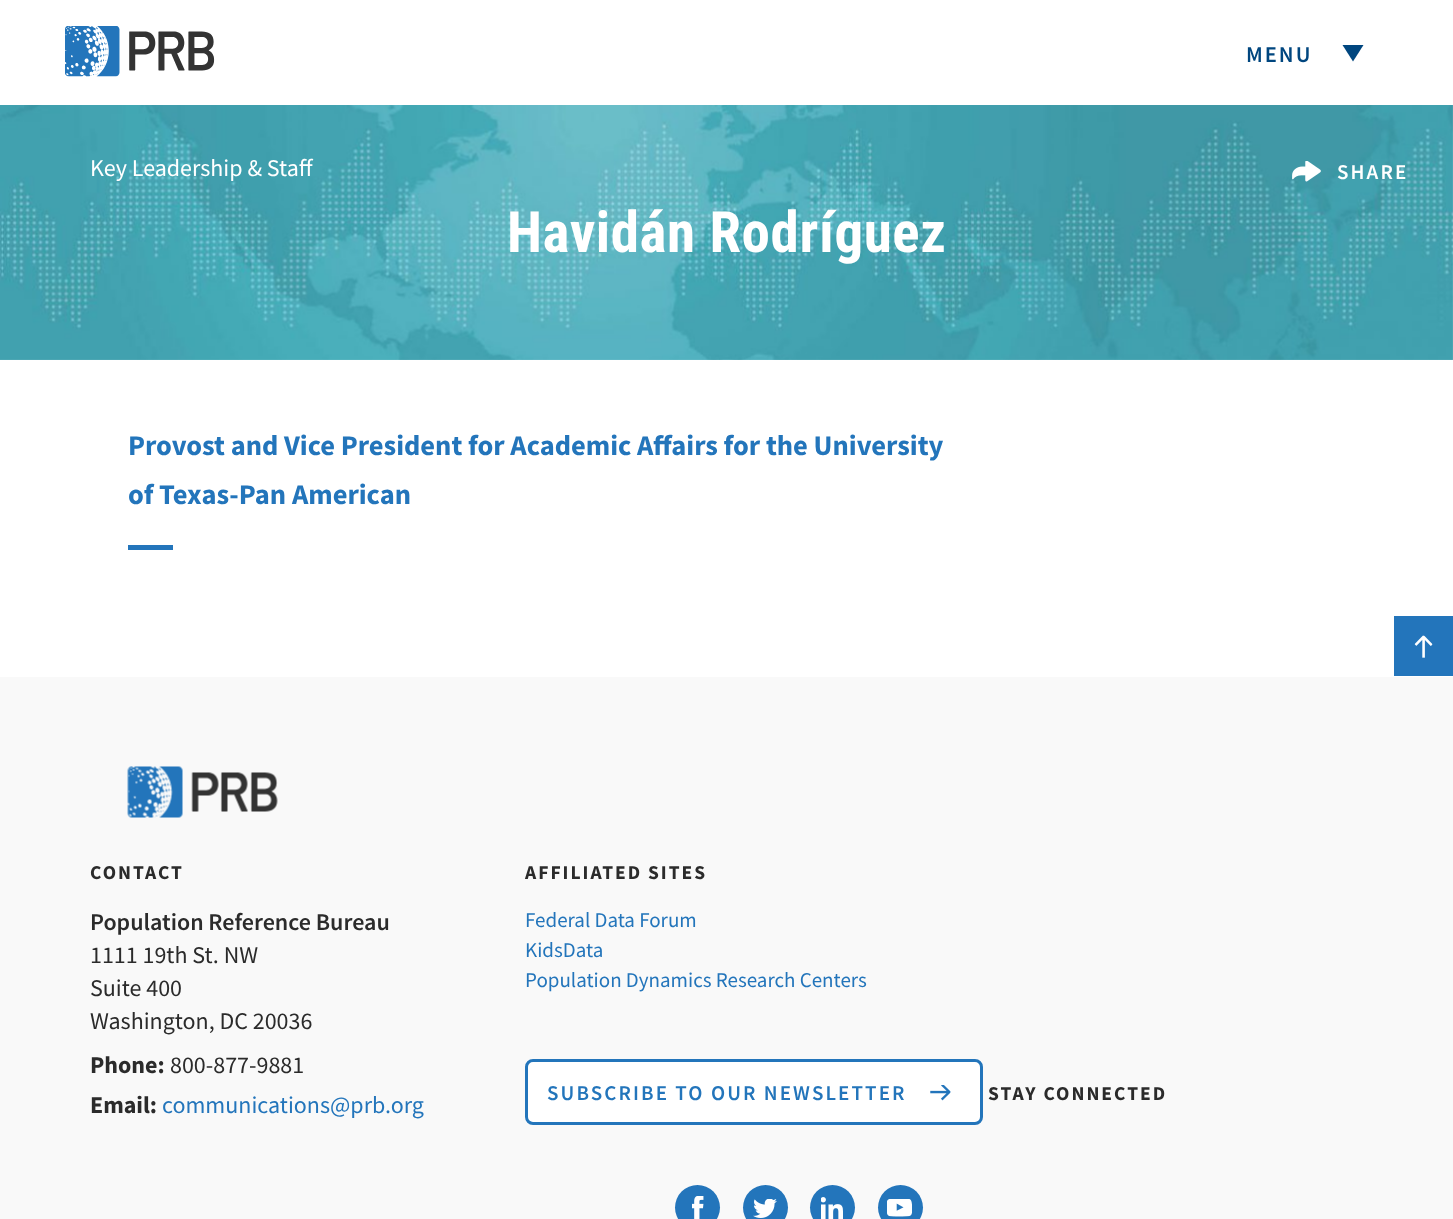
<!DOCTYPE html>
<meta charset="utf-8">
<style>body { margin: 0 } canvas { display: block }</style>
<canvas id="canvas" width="1453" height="1219"></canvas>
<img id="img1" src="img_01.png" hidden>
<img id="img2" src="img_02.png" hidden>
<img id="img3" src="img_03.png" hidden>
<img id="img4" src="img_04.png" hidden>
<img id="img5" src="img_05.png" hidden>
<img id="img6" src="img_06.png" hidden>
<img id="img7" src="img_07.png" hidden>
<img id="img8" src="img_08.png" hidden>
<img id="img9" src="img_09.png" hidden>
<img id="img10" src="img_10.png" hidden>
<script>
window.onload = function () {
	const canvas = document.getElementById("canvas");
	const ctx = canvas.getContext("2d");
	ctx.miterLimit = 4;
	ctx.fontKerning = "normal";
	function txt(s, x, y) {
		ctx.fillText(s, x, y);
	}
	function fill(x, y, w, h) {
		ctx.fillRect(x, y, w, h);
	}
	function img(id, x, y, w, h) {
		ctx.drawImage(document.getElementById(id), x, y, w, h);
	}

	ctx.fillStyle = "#FFFFFF";
	fill(0, 0, 1453, 1219);
	img("img1", 65, 26, 150, 51);
	ctx.fillStyle = "#00467F";
	ctx.beginPath();
	ctx.moveTo(1342.5, 45);
	ctx.lineTo(1363.5, 45);
	ctx.lineTo(1353, 61.5);
	ctx.closePath();
	ctx.fill();
	img("img2", 0, 105, 1453, 255);
	img("img3", 1292, 161, 29, 21);
	ctx.fillStyle = "#2375BB";
	fill(128, 545, 45, 5);
	fill(1394, 616, 59, 60);
	img("img4", 1414, 635, 19, 23);
	ctx.fillStyle = "#F9F9F9";
	fill(0, 677, 1453, 542);
	img("img5", 127, 766, 151, 52);
	ctx.fillStyle = "#FFFFFF";
	ctx.beginPath();
	ctx.roundRect(526.5, 1060.5, 455, 63, 6.5);
	ctx.fill();
	ctx.strokeStyle = "#2375BB";
	ctx.lineWidth = 3;
	ctx.stroke();
	img("img6", 930, 1085, 21, 16);
	ctx.fillStyle = "#2375BB";
	ctx.beginPath();
	ctx.arc(697.5, 1207.5, 22.5, 0, Math.PI * 2);
	ctx.fill();
	img("img7", 692, 1196, 12, 23);
	ctx.beginPath();
	ctx.arc(765.5, 1207.5, 22.5, 0, Math.PI * 2);
	ctx.fill();
	img("img8", 753, 1199, 24, 19);
	ctx.beginPath();
	ctx.arc(832.5, 1207.5, 22.5, 0, Math.PI * 2);
	ctx.fill();
	img("img9", 821, 1197, 22, 22);
	ctx.beginPath();
	ctx.arc(900.5, 1207.5, 22.5, 0, Math.PI * 2);
	ctx.fill();
	img("img10", 887, 1199, 25, 18);
	ctx.letterSpacing = "2px";
	ctx.font = "600 22.5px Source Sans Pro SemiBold";
	ctx.fillStyle = "#00467F";
	txt("MENU", 1246, 62);
	ctx.letterSpacing = "0px";
	ctx.font = "24px Source Sans Pro";
	ctx.fillStyle = "#FFFFFF";
	txt("Key Leadership & Staff", 90, 176);
	ctx.letterSpacing = "2.1px";
	ctx.font = "600 21px Source Sans Pro SemiBold";
	txt("SHARE", 1337, 179);
	ctx.letterSpacing = "0.6px";
	ctx.font = "bold 57px Roboto Condensed";
	txt("Havidán Rodríguez", 507, 252);
	ctx.letterSpacing = "0px";
	ctx.font = "bold 28.5px Source Sans Pro";
	ctx.fillStyle = "#2375BB";
	txt("Provost and Vice President for Academic Affairs for the University", 128, 455);
	txt("of Texas-Pan American", 128, 504);
	ctx.letterSpacing = "2px";
	ctx.font = "bold 19.5px Source Sans Pro";
	ctx.fillStyle = "#2B2B2B";
	txt("CONTACT", 90, 879);
	ctx.letterSpacing = "0px";
	ctx.font = "600 24px Source Sans Pro SemiBold";
	txt("Population Reference Bureau", 90, 930);
	ctx.font = "24px Source Sans Pro";
	txt("1111 19th St. NW", 90, 963);
	txt("Suite 400", 90, 996);
	txt("Washington, DC 20036", 90, 1029);
	ctx.font = "bold 24px Source Sans Pro";
	txt("Phone:", 90, 1073);
	ctx.font = "24px Source Sans Pro";
	txt("800-877-9881", 170, 1073);
	ctx.font = "bold 24px Source Sans Pro";
	txt("Email:", 90, 1113);
	ctx.font = "24px Source Sans Pro";
	ctx.fillStyle = "#2375BB";
	txt("communications@prb.org", 162, 1113);
	ctx.letterSpacing = "2px";
	ctx.font = "bold 19.5px Source Sans Pro";
	ctx.fillStyle = "#2B2B2B";
	txt("AFFILIATED SITES", 525, 879);
	ctx.letterSpacing = "0px";
	ctx.font = "21px Source Sans Pro";
	ctx.fillStyle = "#2375BB";
	txt("Federal Data Forum", 525, 927);
	txt("KidsData", 525, 957);
	txt("Population Dynamics Research Centers", 525, 987);
	ctx.letterSpacing = "2.1px";
	ctx.font = "600 21px Source Sans Pro SemiBold";
	txt("SUBSCRIBE TO OUR NEWSLETTER", 547, 1100);
	ctx.letterSpacing = "2px";
	ctx.font = "bold 19.5px Source Sans Pro";
	ctx.fillStyle = "#2B2B2B";
	txt("STAY CONNECTED", 988, 1100);
};
</script>
